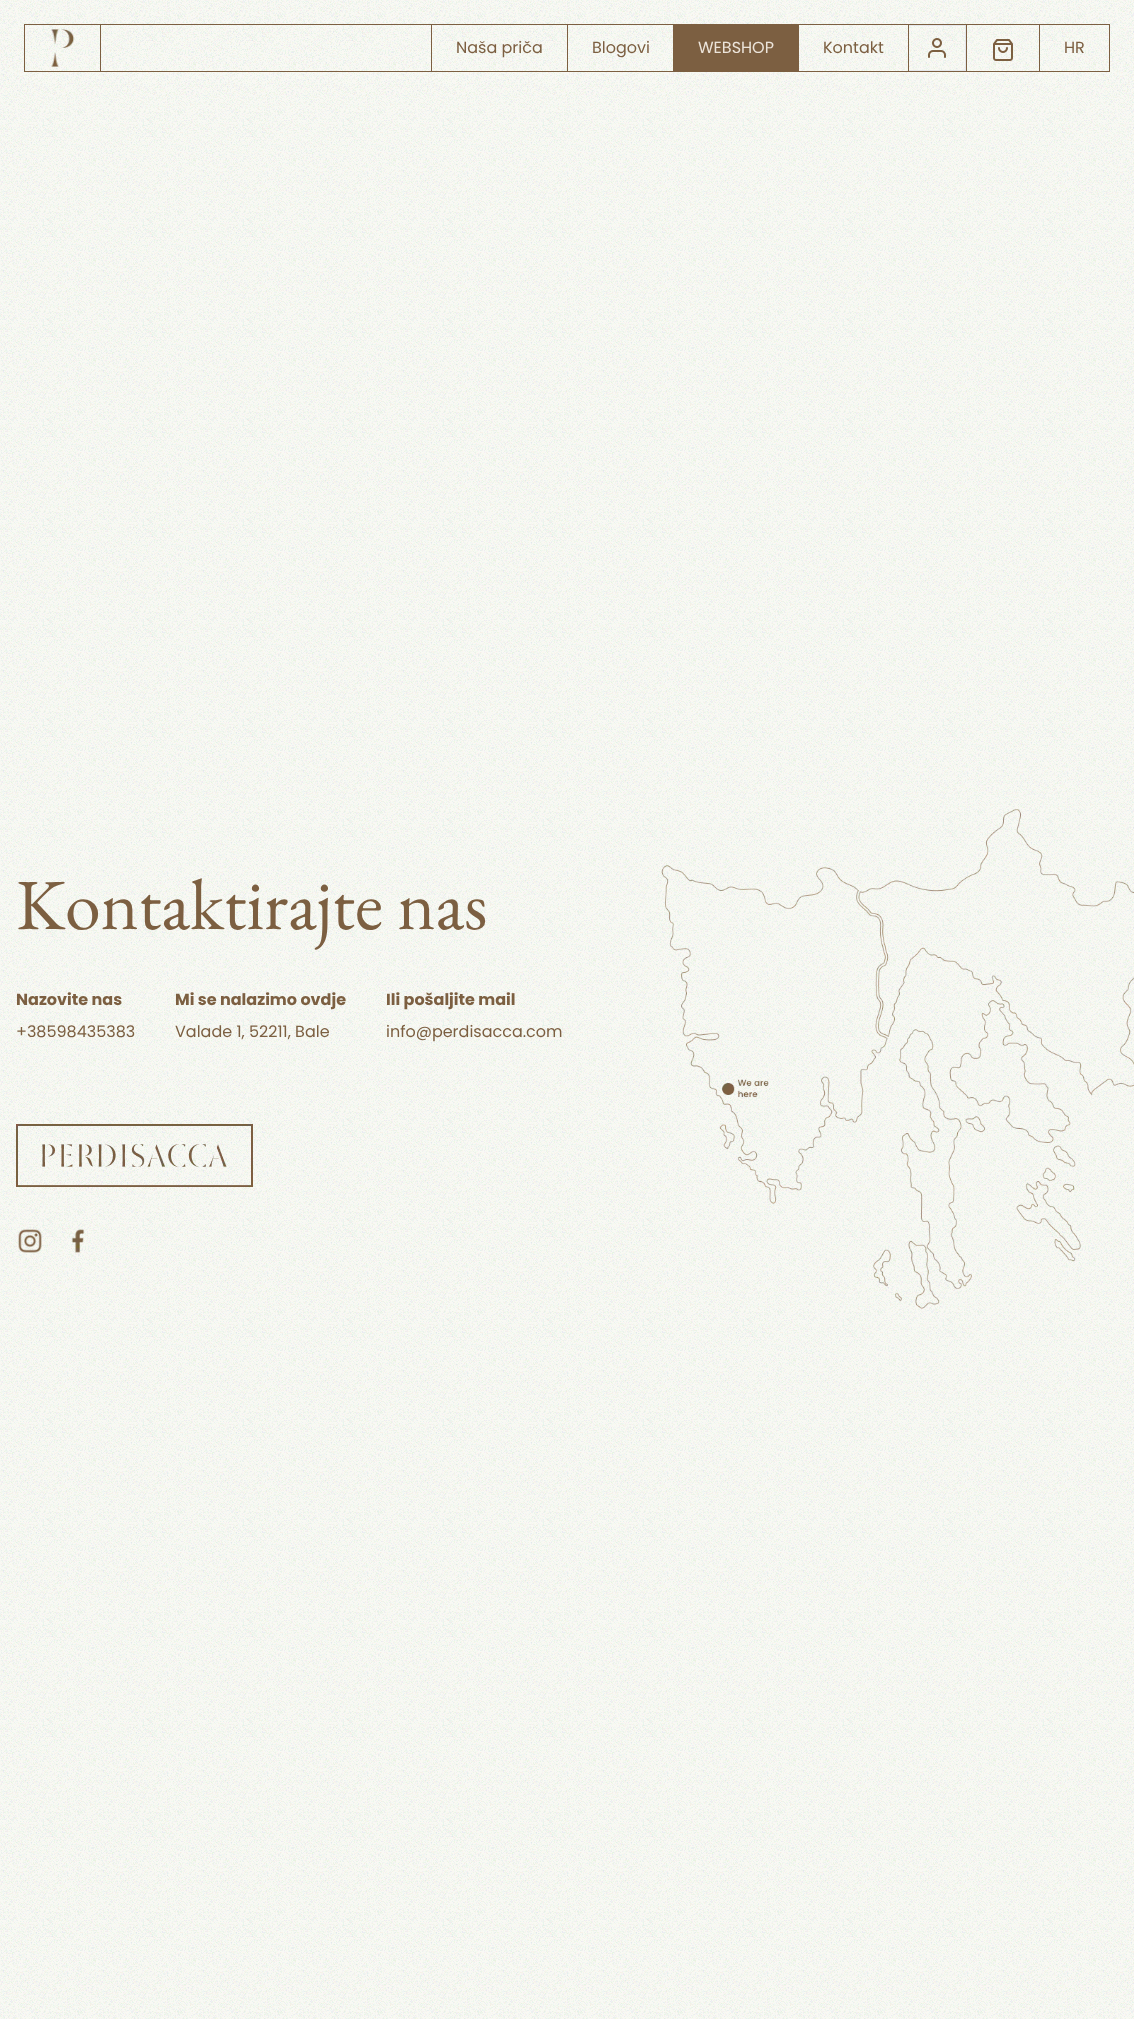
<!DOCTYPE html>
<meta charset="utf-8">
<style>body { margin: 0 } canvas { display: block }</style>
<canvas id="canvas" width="1134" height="2019"></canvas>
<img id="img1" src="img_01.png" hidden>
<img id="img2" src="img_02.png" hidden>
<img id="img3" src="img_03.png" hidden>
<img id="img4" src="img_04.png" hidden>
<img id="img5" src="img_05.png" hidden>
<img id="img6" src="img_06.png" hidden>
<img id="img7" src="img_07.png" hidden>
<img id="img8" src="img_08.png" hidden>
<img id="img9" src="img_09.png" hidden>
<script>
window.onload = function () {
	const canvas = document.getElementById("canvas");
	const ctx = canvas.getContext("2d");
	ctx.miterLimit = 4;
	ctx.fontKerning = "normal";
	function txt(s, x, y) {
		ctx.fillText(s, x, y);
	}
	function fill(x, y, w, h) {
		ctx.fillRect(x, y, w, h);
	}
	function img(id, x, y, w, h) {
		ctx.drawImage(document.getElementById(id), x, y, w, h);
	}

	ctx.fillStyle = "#F9F9F4";
	fill(0, 0, 1134, 2019);
	img("img1", 0, 96, 1134, 1923);
	img("img2", 0, 0, 1134, 96);
	ctx.strokeStyle = "#7C5F41";
	ctx.strokeRect(24.5, 24.5, 76, 47);
	img("img3", 51, 29, 24, 38);
	ctx.fillStyle = "#7C5F41";
	fill(101, 24, 1009, 1);
	fill(1109, 24, 1, 48);
	fill(101, 71, 1009, 1);
	fill(431, 25, 1, 46);
	fill(567, 25, 1, 46);
	fill(673, 25, 126, 46);
	ctx.fillStyle = "#E5E7EB";
	fill(908, 25, 58, 1);
	fill(965, 25, 1, 46);
	fill(908, 70, 58, 1);
	ctx.fillStyle = "#7C5F41";
	fill(908, 25, 1, 46);
	img("img4", 928, 38, 18, 20);
	fill(966, 25, 1, 46);
	img("img5", 993, 39, 20, 22);
	fill(1039, 25, 1, 46);
	img("img6", 16, 1124, 237, 63);
	img("img7", 18, 1229, 24, 24);
	img("img8", 71, 1229, 14, 24);
	img("img9", 661, 809, 473, 500);
	ctx.font = "16px Poppins";
	txt("Naša priča", 456, 53);
	txt("Blogovi", 592, 53);
	ctx.fillStyle = "#ECE4DA";
	txt("WEBSHOP", 698, 53);
	ctx.fillStyle = "#7C5F41";
	txt("Kontakt", 823, 53);
	txt("HR", 1064, 53);
	ctx.font = "72px EB Garamond";
	txt("Kontaktirajte nas", 16, 929);
	ctx.font = "bold 16px Poppins";
	txt("Nazovite nas", 16, 1005);
	ctx.font = "16px Poppins";
	txt("+38598435383", 16, 1037);
	ctx.font = "bold 16px Poppins";
	txt("Mi se nalazimo ovdje", 175, 1005);
	ctx.font = "16px Poppins";
	txt("Valade 1, 52211, Bale", 175, 1037);
	ctx.font = "bold 16px Poppins";
	txt("Ili pošaljite mail", 386, 1005);
	ctx.font = "16px Poppins";
	txt("info@perdisacca.com", 386, 1037);
};
</script>
